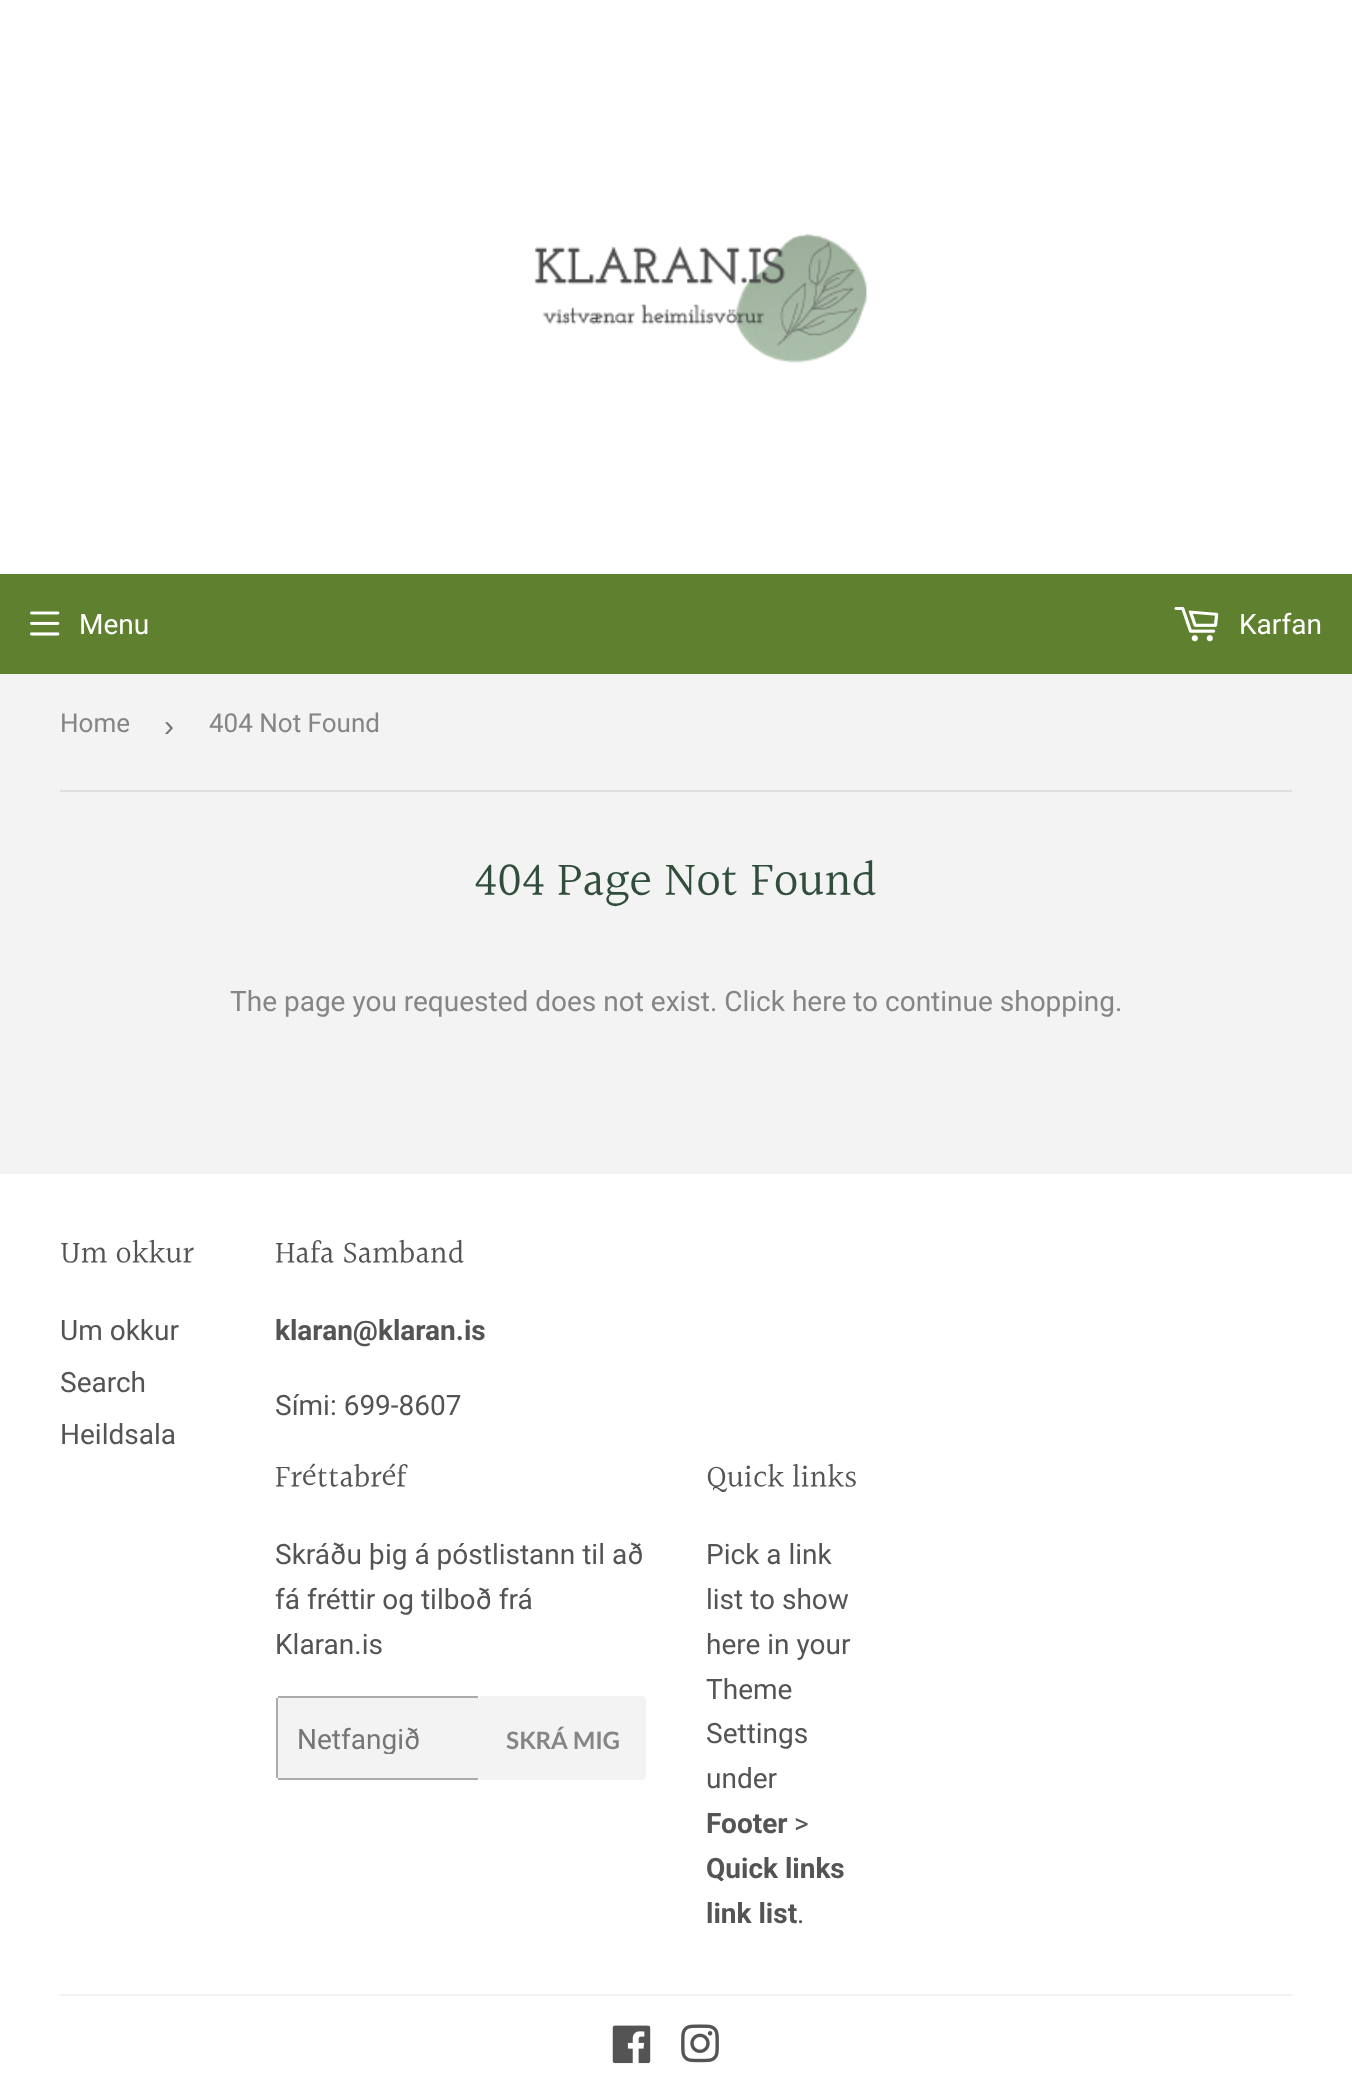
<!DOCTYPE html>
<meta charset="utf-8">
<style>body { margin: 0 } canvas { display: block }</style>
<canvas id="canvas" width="1352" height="2100"></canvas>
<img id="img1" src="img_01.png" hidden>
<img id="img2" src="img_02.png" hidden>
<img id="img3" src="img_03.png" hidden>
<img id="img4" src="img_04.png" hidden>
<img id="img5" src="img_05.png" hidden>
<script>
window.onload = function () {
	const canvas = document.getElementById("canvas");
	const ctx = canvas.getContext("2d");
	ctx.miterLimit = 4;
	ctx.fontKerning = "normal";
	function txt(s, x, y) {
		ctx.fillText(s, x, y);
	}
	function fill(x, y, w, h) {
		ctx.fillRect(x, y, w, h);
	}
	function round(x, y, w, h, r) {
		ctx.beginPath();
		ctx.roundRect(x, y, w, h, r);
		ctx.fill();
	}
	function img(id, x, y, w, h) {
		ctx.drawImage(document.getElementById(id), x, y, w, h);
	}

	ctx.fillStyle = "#F3F3F3";
	fill(0, 0, 1352, 2100);
	ctx.fillStyle = "#FFFFFF";
	fill(0, 0, 1352, 574);
	img("img1", 534, 234, 333, 129);
	ctx.fillStyle = "#5F802F";
	fill(0, 574, 1352, 100);
	img("img2", 30, 611, 30, 25);
	img("img3", 1174, 607, 45, 35);
	ctx.fillStyle = "#DEDEDE";
	fill(60, 790, 1232, 2);
	ctx.fillStyle = "#FFFFFF";
	fill(0, 1174, 1352, 926);
	ctx.fillStyle = "#F3F3F3";
	round(276, 1696, 204, 84, 4);
	ctx.fillStyle = "#ABABAB";
	fill(278, 1696, 200, 2);
	fill(278, 1778, 200, 2);
	fill(276, 1698, 2, 80);
	ctx.fillStyle = "#F3F3F3";
	ctx.beginPath();
	ctx.roundRect(480, 1696, 166, 84, [0, 4, 4, 0]);
	ctx.fill();
	ctx.fillStyle = "#F2F2F2";
	fill(60, 1994, 1232, 2);
	img("img4", 612, 2025, 39, 39);
	img("img5", 681, 2024, 38, 39);
	ctx.font = "28px Roboto";
	ctx.fillStyle = "#FFFFFF";
	txt("Menu", 79, 634);
	txt("Karfan", 1239, 634);
	ctx.font = "26px Roboto";
	ctx.fillStyle = "#858585";
	txt("Home", 60, 732);
	ctx.font = "30px Liberation Sans";
	ctx.fillStyle = "#767676";
	txt("›", 164, 736);
	ctx.font = "26px Roboto";
	ctx.fillStyle = "#858585";
	txt("404 Not Found", 209, 732);
	ctx.font = "48.5px Halant";
	ctx.fillStyle = "#314E3D";
	txt("404 Page Not Found", 474, 897);
	ctx.font = "28px Roboto";
	ctx.fillStyle = "#858585";
	txt("The page you requested does not exist. Click here to continue shopping.", 230, 1011);
	ctx.font = "31.75px Halant";
	ctx.fillStyle = "#545454";
	txt("Um okkur", 60, 1264);
	ctx.font = "28px Roboto";
	txt("Um okkur", 60, 1340);
	txt("Search", 60, 1392);
	txt("Heildsala", 60, 1444);
	ctx.font = "31.75px Halant";
	txt("Hafa Samband", 275, 1264);
	ctx.font = "bold 28px Roboto";
	txt("klaran@klaran.is", 275, 1340);
	ctx.font = "28px Roboto";
	txt("Sími: 699-8607", 275, 1415);
	ctx.font = "31.75px Halant";
	txt("Fréttabréf", 275, 1488);
	ctx.font = "28px Roboto";
	txt("Skráðu þig á póstlistann til að", 275, 1564);
	txt("fá fréttir og tilboð frá", 275, 1609);
	txt("Klaran.is", 275, 1654);
	ctx.save();
	ctx.beginPath();
	ctx.rect(298, 1722, 162, 32);
	ctx.clip();
	ctx.fillStyle = "#767676";
	txt("Netfangið", 297, 1749);
	ctx.restore();
	ctx.font = "bold 24px Lato";
	ctx.fillStyle = "#858585";
	txt("SKRÁ MIG", 506, 1749);
	ctx.font = "31.75px Halant";
	ctx.fillStyle = "#545454";
	txt("Quick links", 706, 1488);
	ctx.font = "28px Roboto";
	txt("Pick a link", 706, 1564);
	txt("list to show", 706, 1609);
	txt("here in your", 706, 1654);
	txt("Theme", 706, 1699);
	txt("Settings", 706, 1743);
	txt("under", 706, 1788);
	ctx.font = "bold 28px Roboto";
	txt("Footer", 706, 1833);
	ctx.font = "28px Roboto";
	txt(">", 794, 1833);
	ctx.font = "bold 28px Roboto";
	txt("Quick links", 706, 1878);
	txt("link list", 706, 1923);
	ctx.font = "28px Roboto";
	txt(".", 797, 1923);
};
</script>
